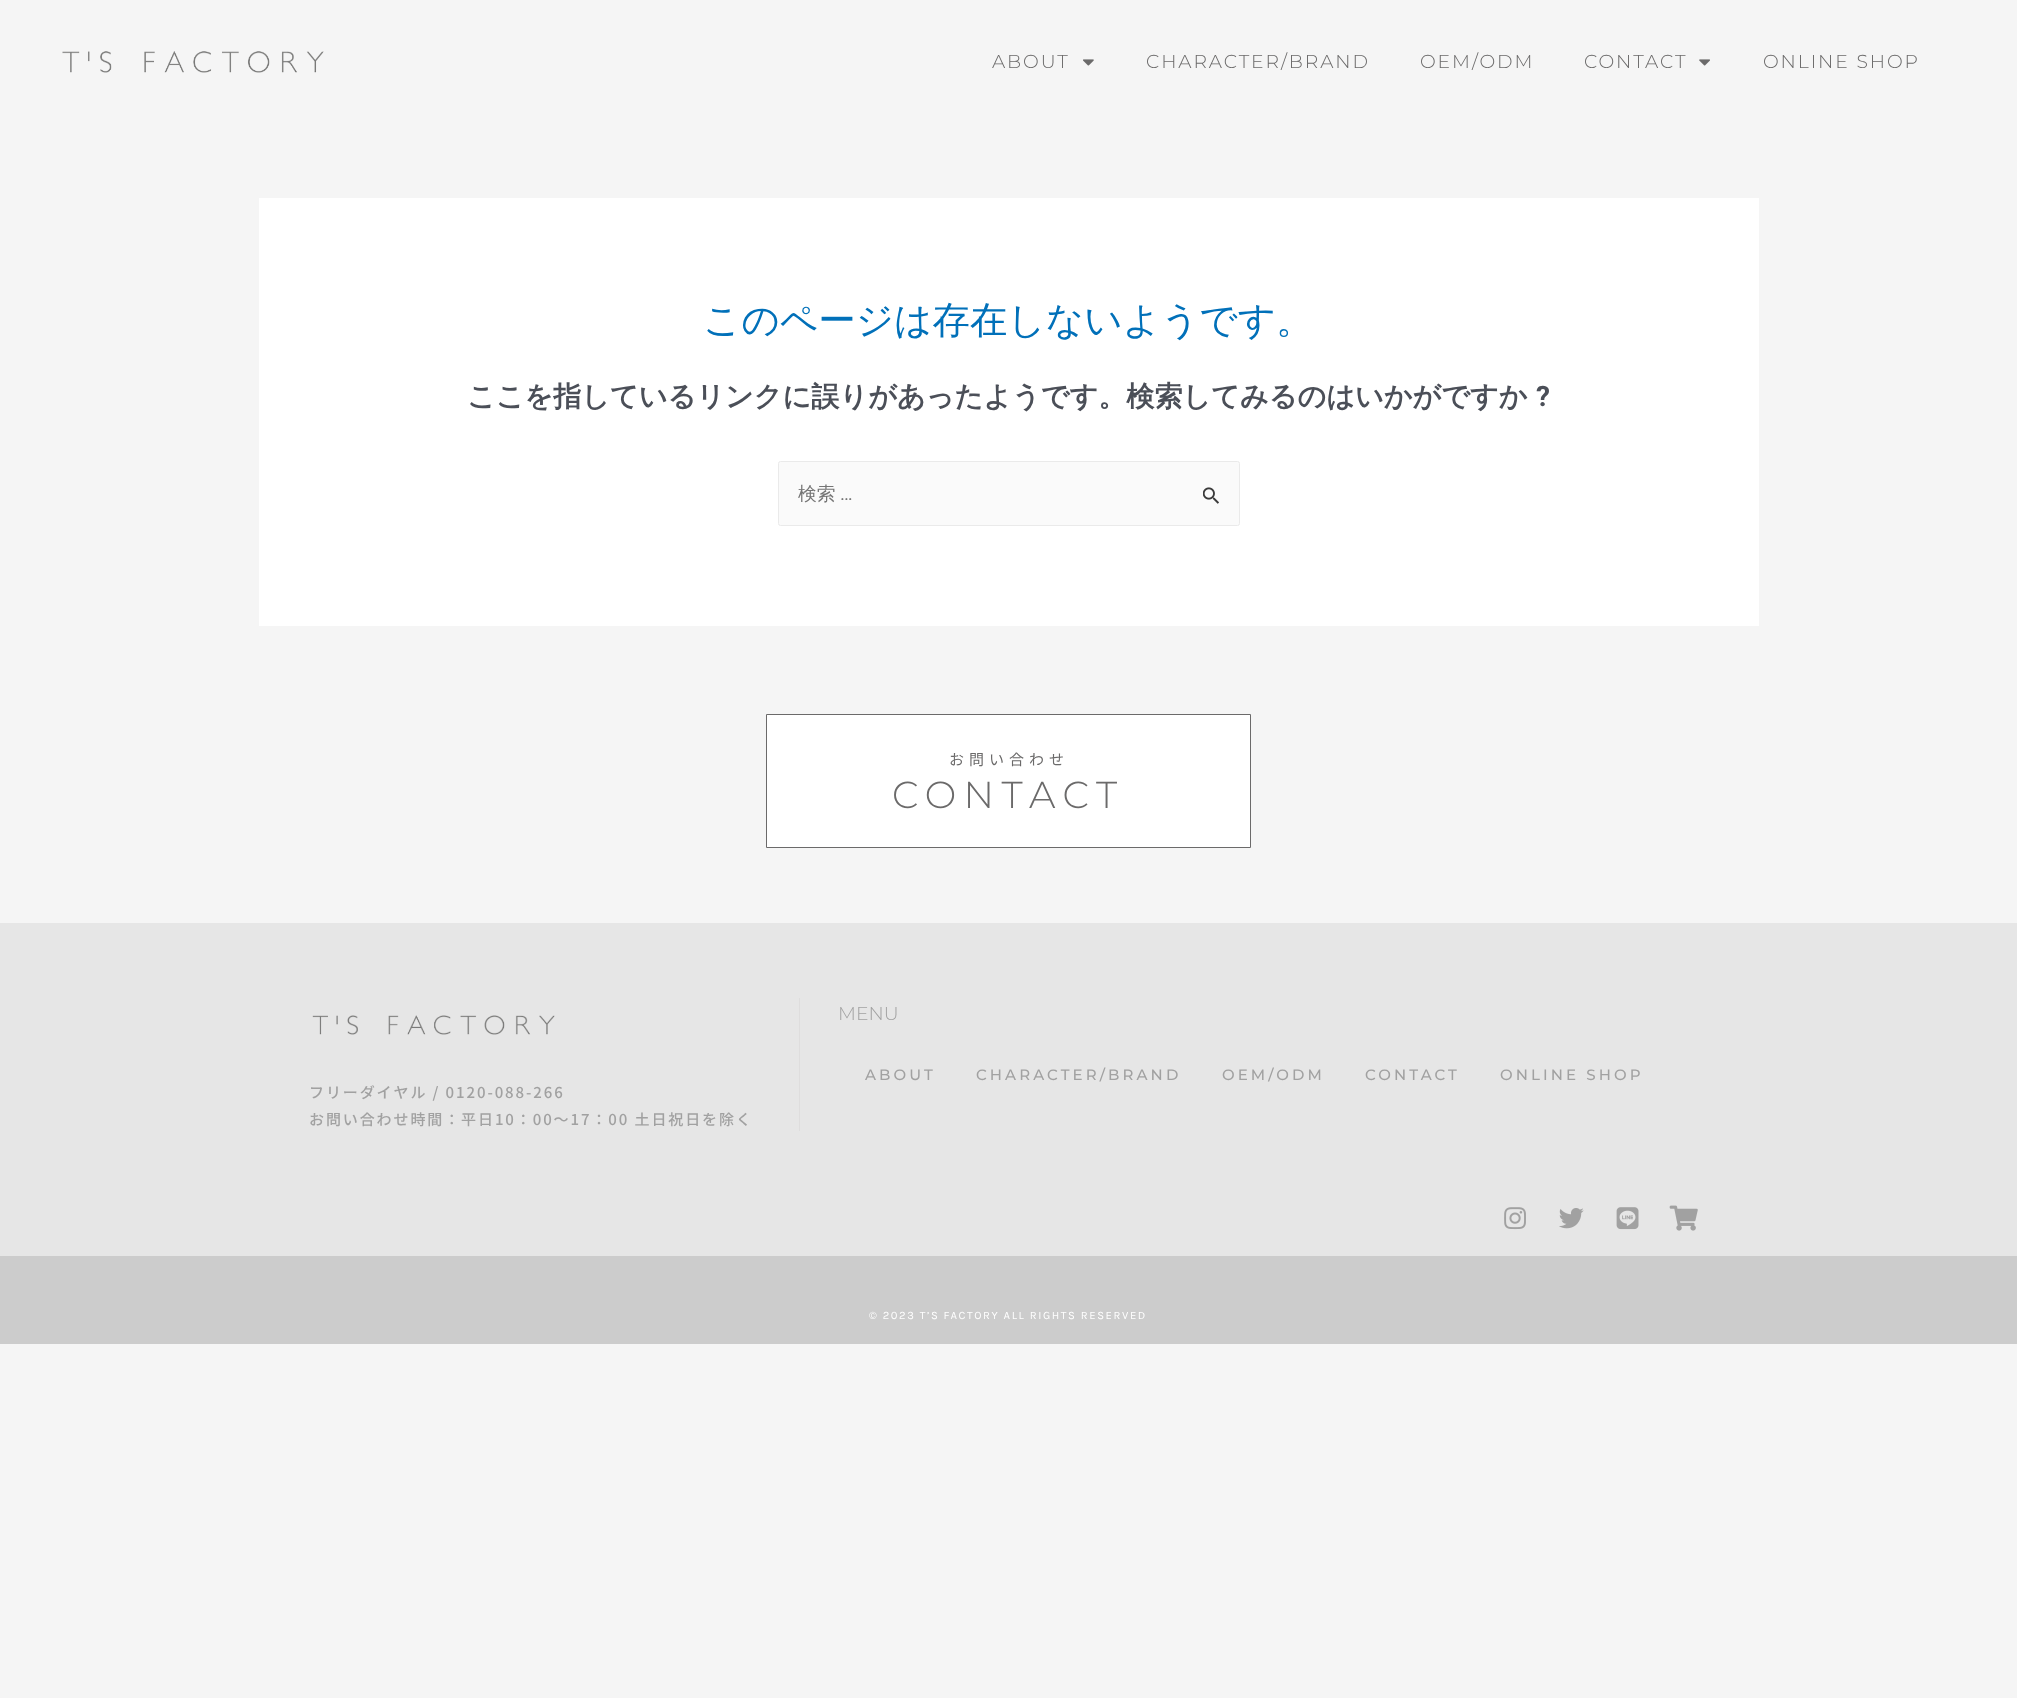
<!DOCTYPE html>
<meta charset="utf-8">
<style>body { margin: 0 } canvas { display: block }</style>
<canvas id="canvas" width="2017" height="1698"></canvas>
<img id="img1" src="img_01.png" hidden>
<img id="img2" src="img_02.png" hidden>
<img id="img3" src="img_03.png" hidden>
<img id="img4" src="img_04.png" hidden>
<img id="img5" src="img_05.png" hidden>
<img id="img6" src="img_06.png" hidden>
<img id="img7" src="img_07.png" hidden>
<img id="img8" src="img_08.png" hidden>
<img id="img9" src="img_09.png" hidden>
<script>
window.onload = function () {
	const canvas = document.getElementById("canvas");
	const ctx = canvas.getContext("2d");
	ctx.miterLimit = 4;
	ctx.fontKerning = "normal";
	function txt(s, x, y) {
		ctx.fillText(s, x, y);
	}
	function fill(x, y, w, h) {
		ctx.fillRect(x, y, w, h);
	}
	function img(id, x, y, w, h) {
		ctx.drawImage(document.getElementById(id), x, y, w, h);
	}

	ctx.fillStyle = "#F5F5F5";
	fill(0, 0, 2017, 1698);
	img("img1", 62, 51, 262, 22);
	img("img2", 1083, 59, 11, 7);
	img("img3", 1699, 59, 11, 7);
	ctx.fillStyle = "#FFFFFF";
	fill(259, 198, 1500, 428);
	ctx.fillStyle = "#FAFAFA";
	ctx.beginPath();
	ctx.roundRect(778.5, 461.5, 461, 64, 2);
	ctx.fill();
	ctx.strokeStyle = "#EAEAEA";
	ctx.stroke();
	img("img4", 1203, 487, 16, 17);
	ctx.fillStyle = "#FFFFFF";
	ctx.beginPath();
	ctx.rect(766.5, 714.5, 484, 133);
	ctx.fill();
	ctx.strokeStyle = "#6B6A6A";
	ctx.stroke();
	ctx.fillStyle = "#E6E6E6";
	fill(0, 923, 2017, 333);
	ctx.fillStyle = "#DEDDDD";
	fill(799, 998, 1, 133);
	img("img5", 312, 1015, 243, 20);
	img("img6", 1504, 1207, 22, 23);
	img("img7", 1559, 1208, 25, 21);
	img("img8", 1616, 1207, 23, 23);
	img("img9", 1669, 1205, 29, 26);
	ctx.fillStyle = "#CCCCCC";
	fill(0, 1256, 2017, 88);
	ctx.letterSpacing = "1.9px";
	ctx.font = "300 18.75px Montserrat";
	ctx.fillStyle = "#6B6A6A";
	txt("ABOUT", 992, 68);
	txt("CHARACTER/BRAND", 1146, 68);
	txt("OEM/ODM", 1420, 68);
	txt("CONTACT", 1584, 68);
	txt("ONLINE SHOP", 1763, 68);
	ctx.letterSpacing = "0px";
	ctx.font = "500 37.5px WenQuanYi Zen Hei";
	ctx.fillStyle = "#0170B9";
	txt("このページは存在しないようです。", 703, 333);
	ctx.font = "bold 28.1px WenQuanYi Zen Hei";
	ctx.fillStyle = "#4B4F58";
	txt("ここを指しているリンクに誤りがあったようです。検索してみるのはいかがですか", 467, 406);
	ctx.font = "bold 28.1px Roboto";
	txt("?", 1536, 406);
	ctx.font = "500 18.75px WenQuanYi Zen Hei";
	ctx.fillStyle = "#757575";
	txt("検索", 798, 500);
	ctx.font = "18.75px Roboto";
	txt("…", 840, 500);
	ctx.letterSpacing = "5px";
	ctx.font = "15px Noto Sans JP";
	ctx.fillStyle = "#6B6A6A";
	txt("お問い合わせ", 949, 765);
	ctx.letterSpacing = "7.5px";
	ctx.font = "300 37.5px Montserrat";
	txt("CONTACT", 892, 808);
	ctx.letterSpacing = "0px";
	ctx.font = "300 18.75px Montserrat";
	ctx.fillStyle = "#A1A1A1";
	txt("MENU", 838, 1020);
	ctx.letterSpacing = "3.1px";
	ctx.font = "500 15px Montserrat";
	txt("ABOUT", 865, 1080);
	txt("CHARACTER/BRAND", 976, 1080);
	txt("OEM/ODM", 1222, 1080);
	txt("CONTACT", 1365, 1080);
	txt("ONLINE SHOP", 1500, 1080);
	ctx.letterSpacing = "1.9px";
	ctx.font = "500 15px Noto Sans JP";
	txt("フリーダイヤル / 0120-088-266", 309, 1098);
	txt("お問い合わせ時間：平日10：00～17：00 土日祝日を除く", 309, 1125);
	ctx.letterSpacing = "1.6px";
	ctx.font = "11.25px Karla";
	ctx.fillStyle = "#FFFFFF";
	txt("© 2023 T’S FACTORY ALL RIGHTS RESERVED", 869, 1319);
};
</script>
